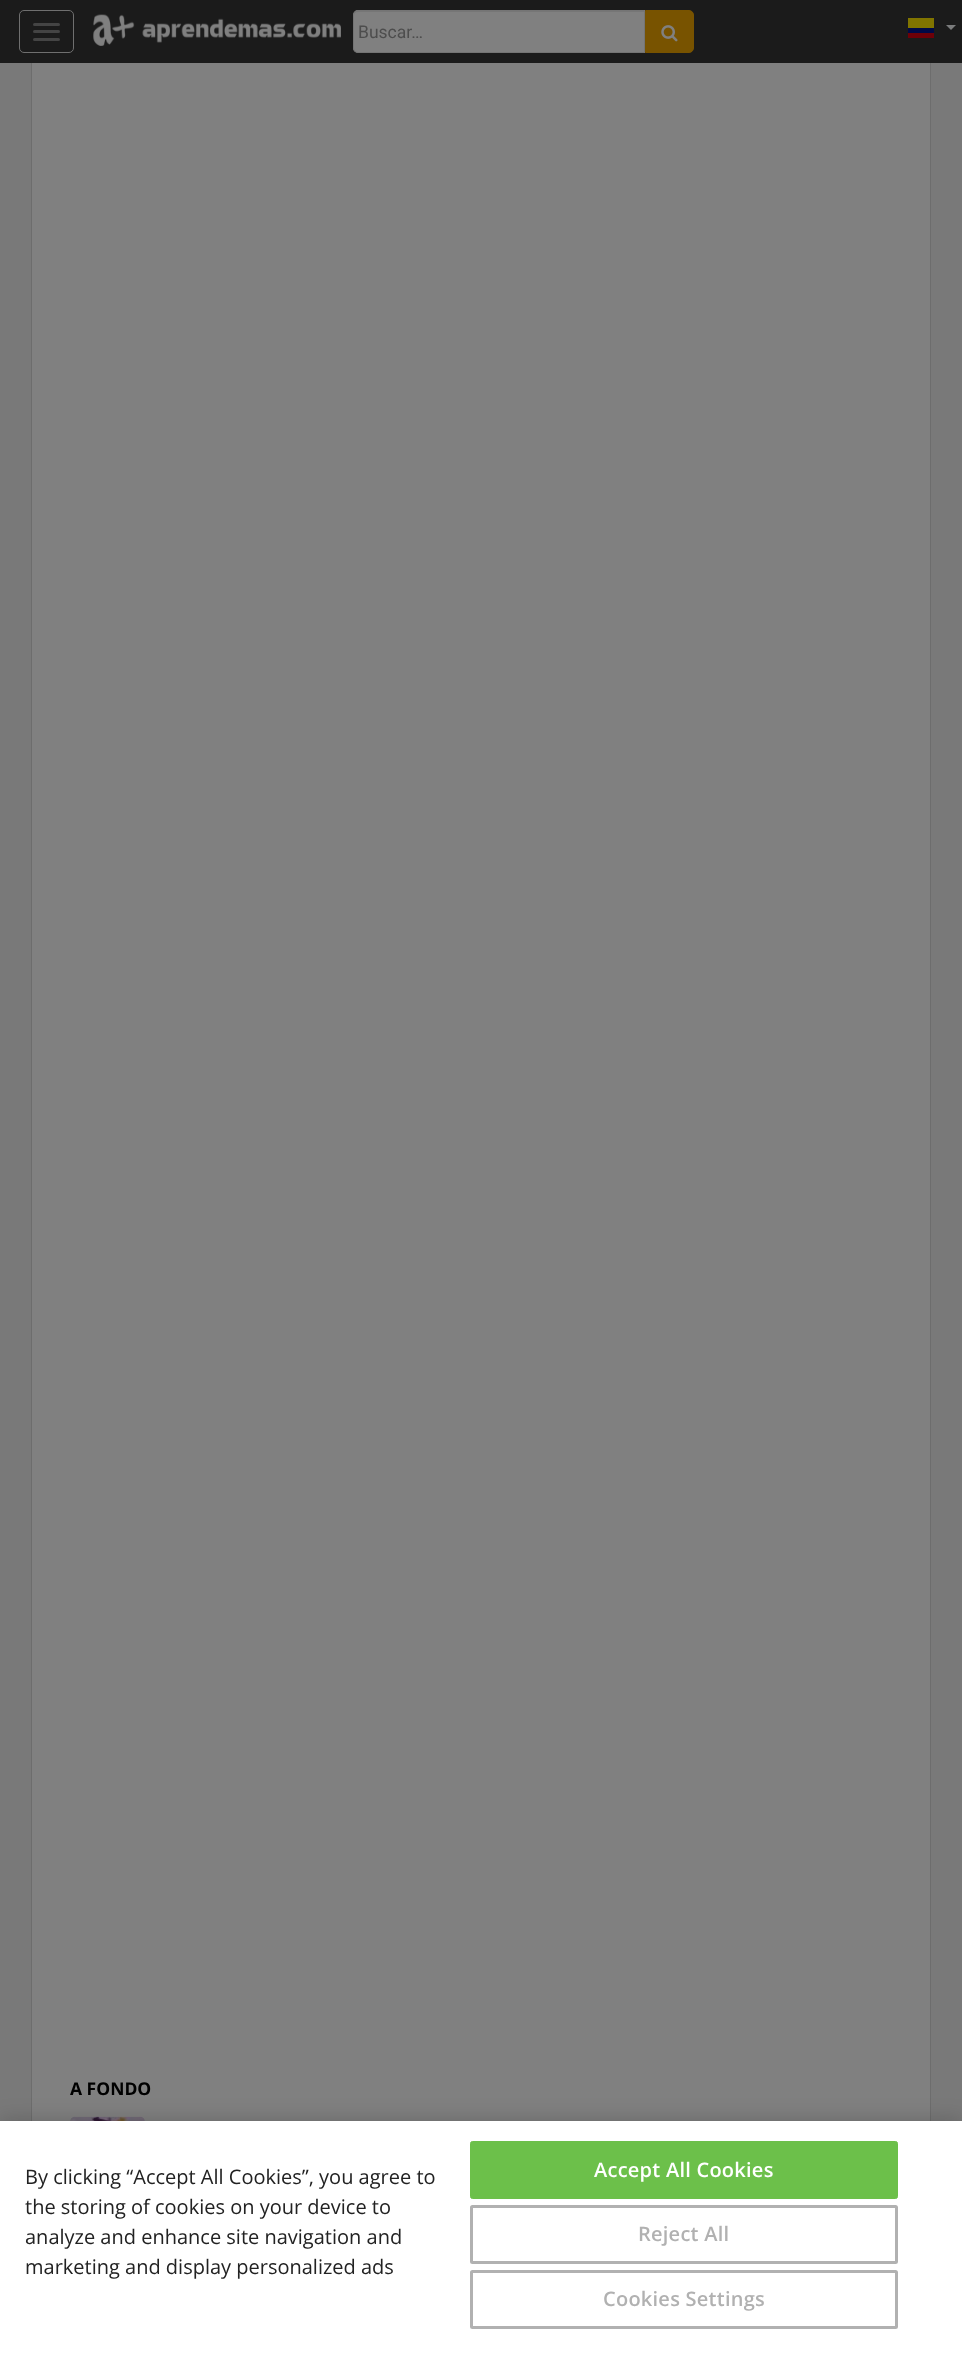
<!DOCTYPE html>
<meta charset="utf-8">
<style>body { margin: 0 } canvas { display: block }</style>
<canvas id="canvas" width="962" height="2354"></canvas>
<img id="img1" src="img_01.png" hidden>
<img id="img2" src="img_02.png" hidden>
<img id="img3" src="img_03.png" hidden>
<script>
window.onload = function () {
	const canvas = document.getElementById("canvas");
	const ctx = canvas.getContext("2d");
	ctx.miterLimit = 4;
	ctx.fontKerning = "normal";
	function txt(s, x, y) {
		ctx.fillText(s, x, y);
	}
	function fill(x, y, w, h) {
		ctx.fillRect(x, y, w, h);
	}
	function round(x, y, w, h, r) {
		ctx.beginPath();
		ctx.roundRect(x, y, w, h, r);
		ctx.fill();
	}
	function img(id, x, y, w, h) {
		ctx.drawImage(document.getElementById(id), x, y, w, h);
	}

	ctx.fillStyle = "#797979";
	fill(0, 0, 962, 2354);
	ctx.fillStyle = "#808080";
	fill(32, 63, 898, 2058);
	ctx.strokeStyle = "#6D6D6D";
	ctx.strokeRect(31.5, -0.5, 899, 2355);
	ctx.fillStyle = "#1B1B1B";
	fill(0, 0, 962, 63);
	ctx.beginPath();
	ctx.roundRect(19.5, 10.5, 54, 42, 4.5);
	ctx.strokeStyle = "#6F6F6F";
	ctx.stroke();
	ctx.fillStyle = "#444444";
	round(33, 23, 27, 3, 1.5);
	round(33, 30, 27, 3, 1.5);
	round(33, 38, 27, 3, 1.5);
	img("img1", 93, 14, 248, 32);
	ctx.fillStyle = "#808080";
	ctx.beginPath();
	ctx.roundRect(353, 10, 292, 43, [5, 0, 0, 5]);
	ctx.fill();
	ctx.fillStyle = "#767676";
	ctx.beginPath();
	ctx.moveTo(358, 12);
	ctx.lineTo(644, 12);
	ctx.lineTo(644, 11);
	ctx.lineTo(358, 11);
	ctx.bezierCurveTo(355, 11, 354, 13, 354, 16);
	ctx.bezierCurveTo(354, 14, 355, 12, 358, 12);
	ctx.closePath();
	ctx.fill();
	ctx.beginPath();
	ctx.roundRect(353.5, 10.5, 291, 42, [4.5, 0, 0, 4.5]);
	ctx.strokeStyle = "#747474";
	ctx.stroke();
	ctx.fillStyle = "#785300";
	ctx.beginPath();
	ctx.roundRect(645.5, 10.5, 48, 42, [0, 4.5, 4.5, 0]);
	ctx.fill();
	ctx.strokeStyle = "#785300";
	ctx.stroke();
	img("img2", 661, 25, 17, 17);
	ctx.fillStyle = "#807400";
	fill(908, 18, 26, 10);
	ctx.fillStyle = "#7B7C7D";
	ctx.beginPath();
	ctx.moveTo(946, 25);
	ctx.lineTo(956, 25);
	ctx.lineTo(951, 30);
	ctx.closePath();
	ctx.fill();
	ctx.fillStyle = "#000A47";
	fill(908, 28, 26, 5);
	ctx.fillStyle = "#6D0008";
	fill(908, 33, 26, 5);
	img("img3", 70, 2116, 75, 5);
	ctx.fillStyle = "rgba(0, 0, 0, 0.2)";
	ctx.filter = "blur(11px)";
	ctx.beginPath();
	ctx.rect(0, 2121, 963, 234);
	ctx.fill();
	ctx.filter = "none";
	ctx.fillStyle = "#FFFFFF";
	fill(0, 2121, 962, 233);
	ctx.fillStyle = "#6CC04A";
	ctx.beginPath();
	ctx.roundRect(470.5, 2141.5, 427, 57, 2);
	ctx.fill();
	ctx.strokeStyle = "#6CC04A";
	ctx.stroke();
	ctx.beginPath();
	ctx.roundRect(471.5, 2206.5, 425, 56, 1);
	ctx.strokeStyle = "#B1B1B1";
	ctx.lineWidth = 3;
	ctx.stroke();
	ctx.beginPath();
	ctx.roundRect(471.5, 2271.5, 425, 56, 1);
	ctx.stroke();
	ctx.font = "17.5px Roboto";
	ctx.fillStyle = "#4D4D4D";
	txt("Buscar…", 358, 38);
	ctx.font = "bold 17.5px Open Sans";
	ctx.fillStyle = "#000000";
	txt("A FONDO", 70, 2095);
	ctx.font = "20px Open Sans";
	ctx.fillStyle = "#222222";
	txt("By clicking “Accept All Cookies”, you agree to", 25, 2184);
	txt("the storing of cookies on your device to", 25, 2214);
	txt("analyze and enhance site navigation and", 25, 2244);
	txt("marketing and display personalized ads", 25, 2274);
	ctx.letterSpacing = "0.25px";
	ctx.font = "600 20px Open Sans";
	ctx.fillStyle = "#FFFFFF";
	txt("Accept All Cookies", 594, 2177);
	ctx.fillStyle = "#B1B1B1";
	txt("Reject All", 638, 2241);
	txt("Cookies Settings", 603, 2306);
};
</script>
